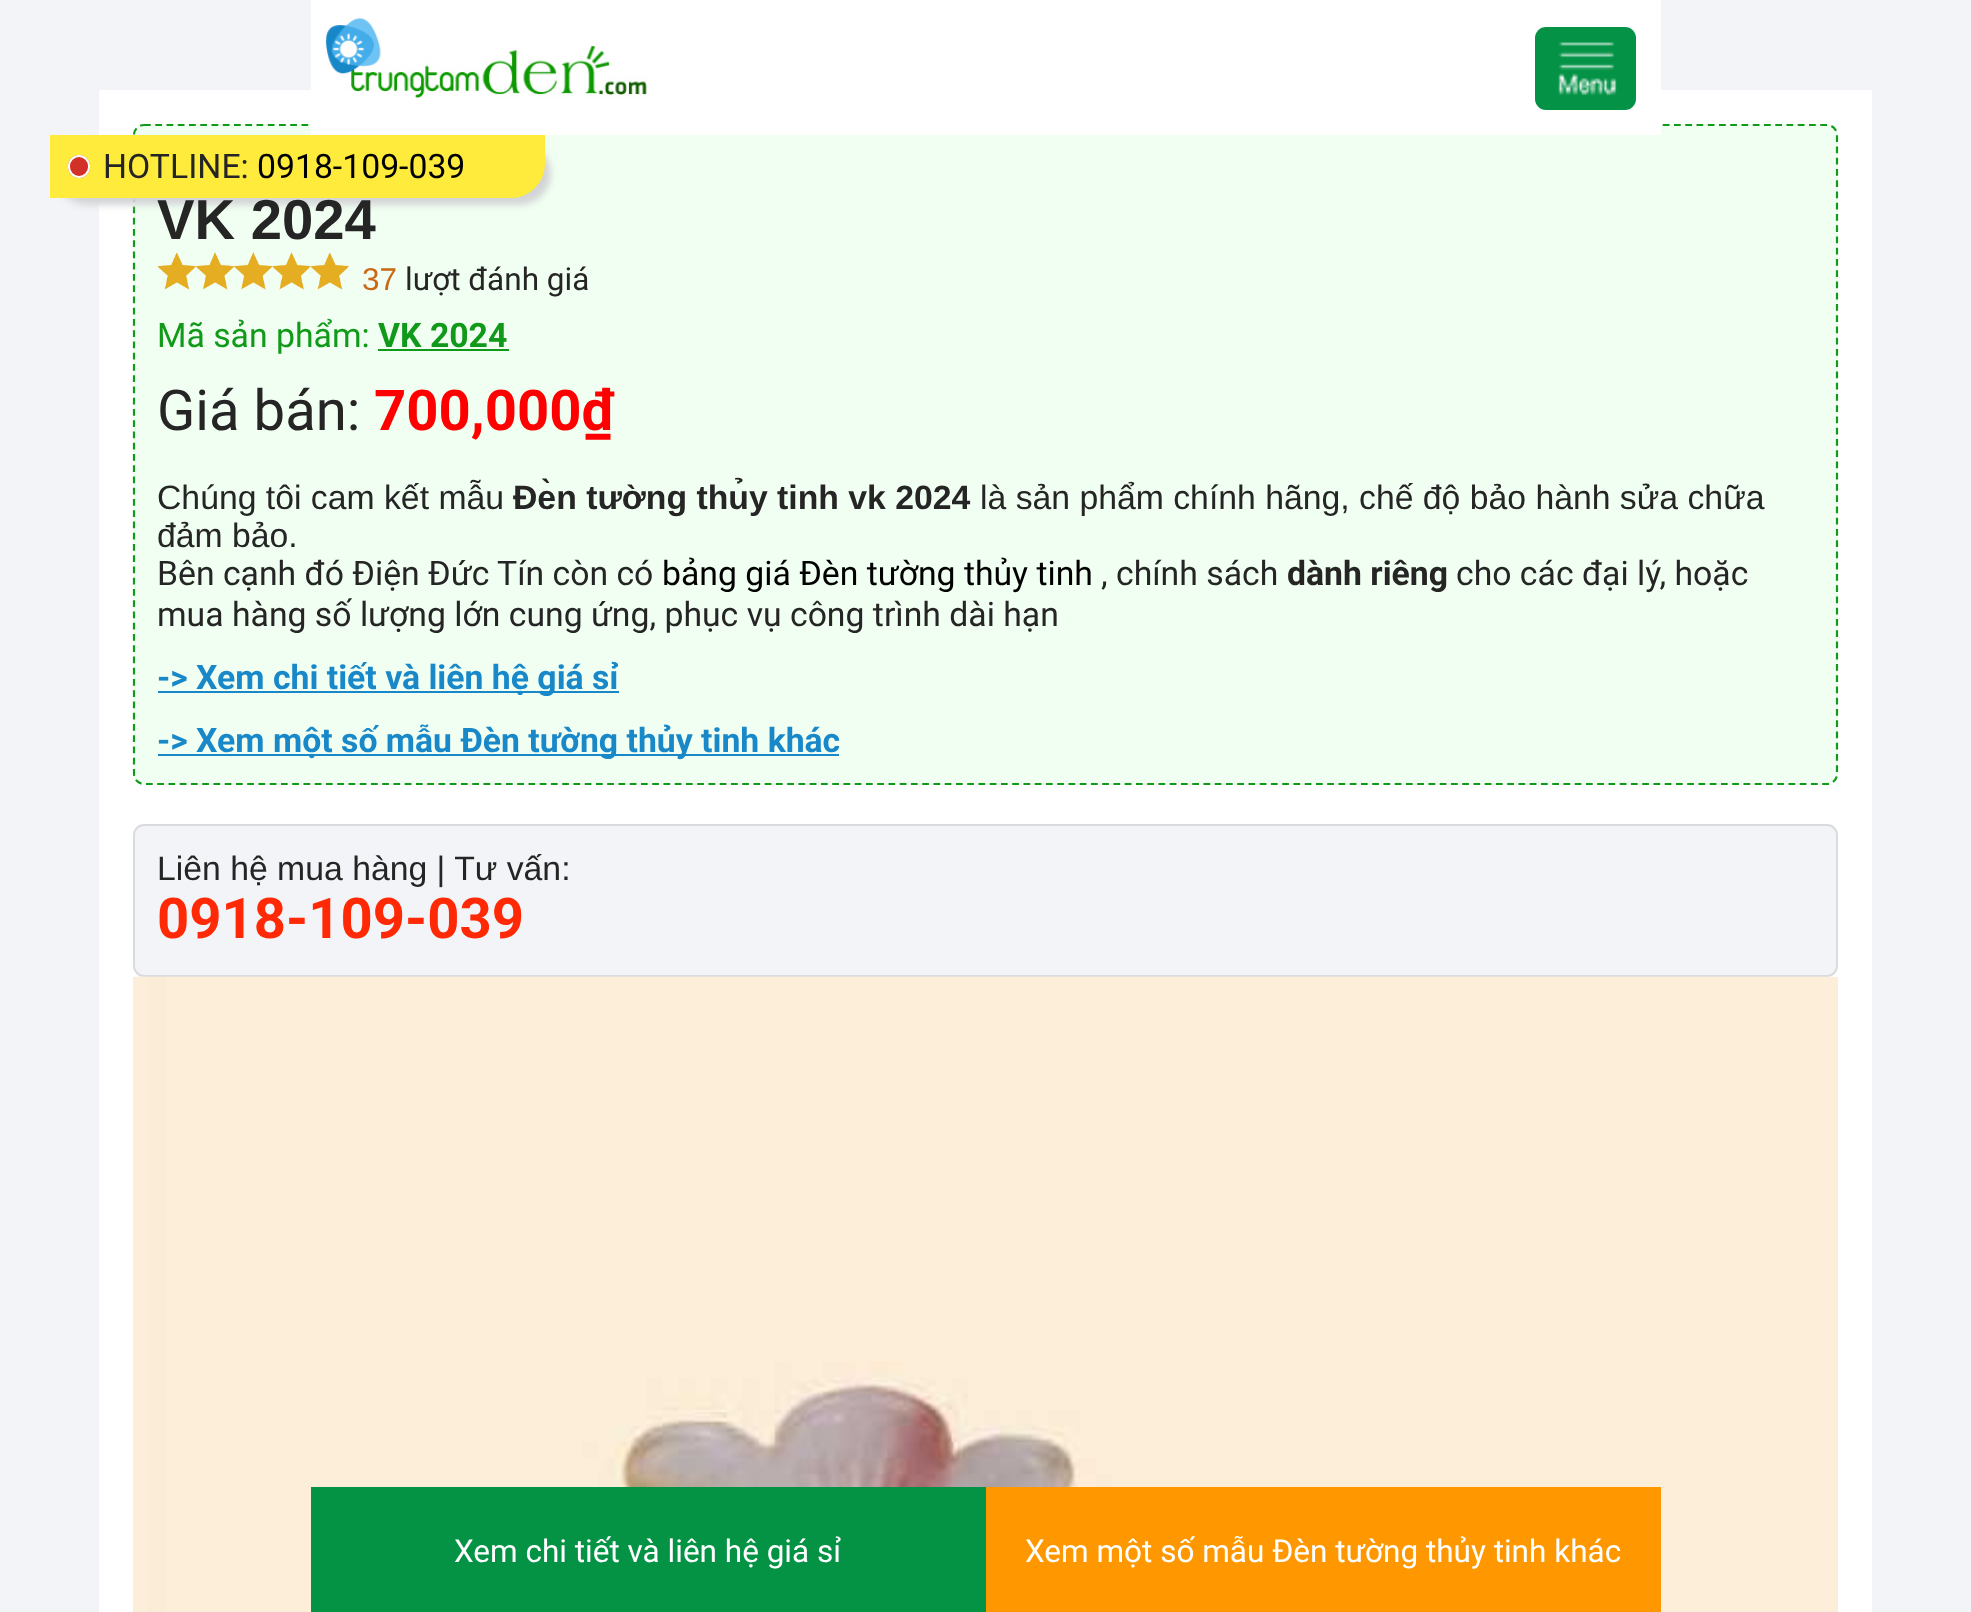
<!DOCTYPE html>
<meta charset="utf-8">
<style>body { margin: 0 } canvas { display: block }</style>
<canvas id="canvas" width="1971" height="1612"></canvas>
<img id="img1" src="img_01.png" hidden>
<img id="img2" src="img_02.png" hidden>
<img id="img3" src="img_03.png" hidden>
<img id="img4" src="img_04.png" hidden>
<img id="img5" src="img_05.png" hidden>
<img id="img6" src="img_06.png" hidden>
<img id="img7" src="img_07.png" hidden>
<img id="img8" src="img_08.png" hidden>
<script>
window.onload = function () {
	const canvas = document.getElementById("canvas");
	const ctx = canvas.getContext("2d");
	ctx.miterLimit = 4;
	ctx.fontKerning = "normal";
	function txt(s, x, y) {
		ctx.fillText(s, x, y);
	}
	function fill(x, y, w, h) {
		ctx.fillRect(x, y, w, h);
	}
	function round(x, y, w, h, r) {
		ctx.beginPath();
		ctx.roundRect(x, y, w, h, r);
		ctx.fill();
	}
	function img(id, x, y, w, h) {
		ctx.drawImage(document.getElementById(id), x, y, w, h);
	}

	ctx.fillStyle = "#F3F4F7";
	fill(0, 0, 1971, 1612);
	ctx.fillStyle = "#FFFFFF";
	fill(99, 90, 1773, 1522);
	ctx.fillStyle = "#F1FFF2";
	round(133, 124, 1705, 661, 11);
	ctx.beginPath();
	ctx.moveTo(144, 125);
	ctx.lineTo(1827, 125);
	ctx.bezierCurveTo(1832.5, 125, 1837, 129.5, 1837, 135);
	ctx.lineTo(1837, 774);
	ctx.bezierCurveTo(1837, 779.5, 1832.5, 784, 1827, 784);
	ctx.lineTo(144, 784);
	ctx.bezierCurveTo(138.5, 784, 134, 779.5, 134, 774);
	ctx.lineTo(134, 135);
	ctx.bezierCurveTo(134, 129.5, 138.5, 125, 144, 125);
	ctx.closePath();
	ctx.strokeStyle = "#119919";
	ctx.lineWidth = 2.2;
	ctx.setLineDash([6.75, 4.5]);
	ctx.stroke();
	ctx.fillStyle = "#FFFFFF";
	fill(311, 0, 1350, 135);
	img("img1", 325, 17, 323, 82);
	ctx.fillStyle = "#049246";
	round(1535, 27, 101, 83, 11);
	img("img2", 1558, 42, 59, 54);
	ctx.fillStyle = "#D3D4D6";
	ctx.filter = "blur(3.5px)";
	ctx.beginPath();
	ctx.roundRect(56, 142, 495, 63, 34);
	ctx.fill();
	ctx.filter = "none";
	ctx.fillStyle = "#FFEB3B";
	ctx.beginPath();
	ctx.roundRect(50, 135, 495, 63, [0, 0, 34, 0]);
	ctx.fill();
	ctx.fillStyle = "#CE3227";
	round(68, 155, 22, 23, 11);
	ctx.fillStyle = "rgba(212, 49, 38, 0.45)";
	ctx.beginPath();
	ctx.roundRect(69, 156, 20, 21, 10);
	ctx.fill();
	ctx.strokeStyle = "#FFFFFF";
	ctx.lineWidth = 2;
	ctx.setLineDash([]);
	ctx.stroke();
	img("img3", 157, 252, 39, 38);
	img("img4", 195, 252, 39, 38);
	img("img5", 234, 252, 39, 38);
	img("img6", 272, 252, 39, 38);
	img("img7", 310, 252, 39, 38);
	ctx.fillStyle = "#119919";
	fill(378, 349, 131, 2);
	ctx.fillStyle = "#1888C9";
	fill(158, 691, 461, 2);
	fill(158, 754, 681, 2);
	ctx.fillStyle = "#F3F4F7";
	ctx.beginPath();
	ctx.roundRect(134, 825, 1703, 151, 10);
	ctx.fill();
	ctx.strokeStyle = "#DADBDE";
	ctx.stroke();
	img("img8", 133, 976, 1705, 636);
	ctx.fillStyle = "#049245";
	fill(311, 1487, 675, 125);
	ctx.fillStyle = "#FF9800";
	fill(986, 1487, 675, 125);
	ctx.font = "33.75px Roboto";
	ctx.fillStyle = "#252525";
	txt("HOTLINE:", 103, 178);
	ctx.fillStyle = "#000000";
	txt("0918-109-039", 257, 178);
	ctx.font = "bold 56.25px Liberation Sans";
	ctx.fillStyle = "#252525";
	txt("VK 2024", 157, 239);
	ctx.font = "31.5px Liberation Sans";
	ctx.fillStyle = "#CA6815";
	txt("37", 362, 290);
	ctx.font = "31.5px Roboto";
	ctx.fillStyle = "#252525";
	txt("lượt đánh giá", 405, 290);
	ctx.font = "33.75px Roboto";
	ctx.fillStyle = "#119919";
	txt("Mã sản phẩm:", 157, 347);
	ctx.font = "bold 33.75px Roboto";
	txt("VK 2024", 378, 347);
	ctx.font = "56.25px Roboto";
	ctx.fillStyle = "#252525";
	txt("Giá bán:", 157, 430);
	ctx.font = "bold 56.25px Roboto";
	ctx.fillStyle = "#FF0000";
	txt("700,000₫", 374, 430);
	ctx.font = "33.75px Liberation Sans";
	ctx.fillStyle = "#252525";
	txt("Chúng tôi cam kết mẫu", 157, 509);
	ctx.font = "bold 33.75px Liberation Sans";
	txt("Đèn tường thủy tinh vk 2024", 513, 509);
	ctx.font = "33.75px Liberation Sans";
	txt("là sản phẩm chính hãng, chế độ bảo hành sửa chữa", 980, 509);
	txt("đảm bảo.", 157, 547);
	ctx.font = "33.75px Roboto";
	txt("Bên cạnh đó Điện Đức Tín còn có", 157, 585);
	ctx.fillStyle = "#000000";
	txt("bảng giá Đèn tường thủy tinh", 662, 585);
	ctx.fillStyle = "#252525";
	txt(", chính sách", 1101, 585);
	ctx.font = "bold 33.75px Roboto";
	txt("dành riêng", 1287, 585);
	ctx.font = "33.75px Roboto";
	txt("cho các đại lý, hoặc", 1456, 585);
	txt("mua hàng số lượng lớn cung ứng, phục vụ công trình dài hạn", 157, 626);
	ctx.font = "bold 33.75px Roboto";
	ctx.fillStyle = "#1888C9";
	txt("-> Xem chi tiết và liên hệ giá sỉ", 157, 689);
	txt("-> Xem một số mẫu Đèn tường thủy tinh khác", 157, 752);
	ctx.font = "33.75px Liberation Sans";
	ctx.fillStyle = "#252525";
	txt("Liên hệ mua hàng | Tư vấn:", 157, 880);
	ctx.font = "bold 56.25px Roboto";
	ctx.fillStyle = "#FF2905";
	txt("0918-109-039", 157, 938);
	ctx.font = "31.5px Roboto";
	ctx.fillStyle = "#FFFFFF";
	txt("Xem chi tiết và liên hệ giá sỉ", 454, 1562);
	txt("Xem một số mẫu Đèn tường thủy tinh khác", 1025, 1562);
};
</script>
